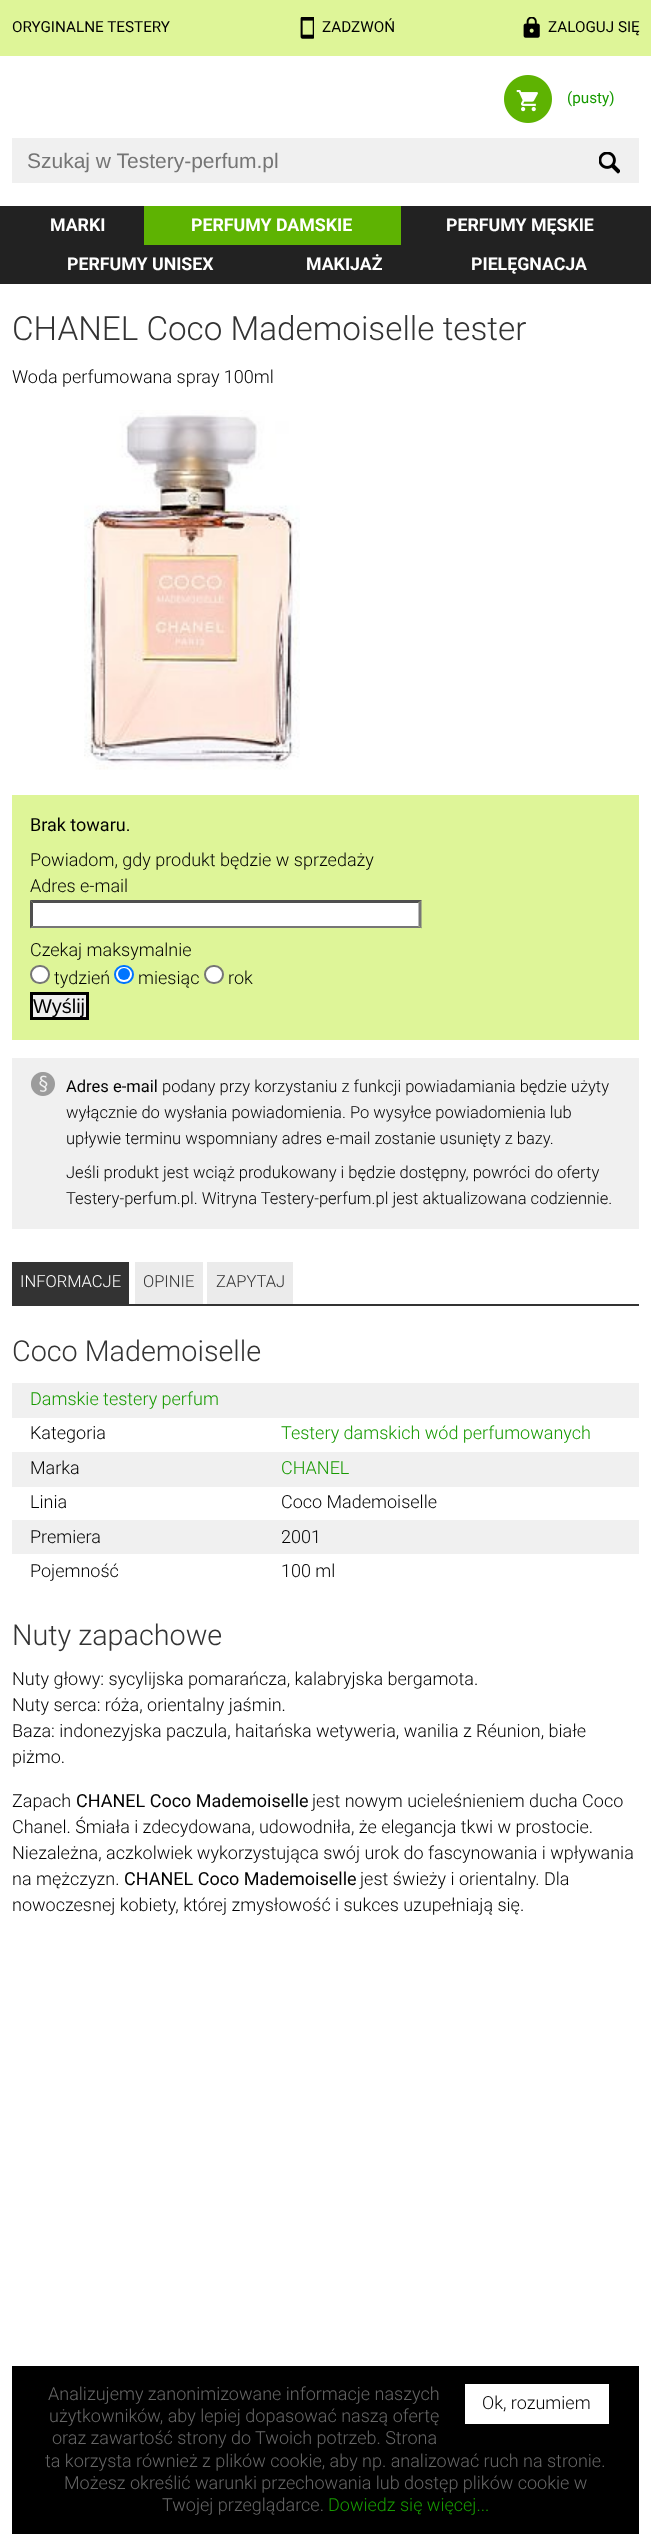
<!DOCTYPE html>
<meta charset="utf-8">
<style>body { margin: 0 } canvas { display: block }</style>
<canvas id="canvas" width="651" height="2534"></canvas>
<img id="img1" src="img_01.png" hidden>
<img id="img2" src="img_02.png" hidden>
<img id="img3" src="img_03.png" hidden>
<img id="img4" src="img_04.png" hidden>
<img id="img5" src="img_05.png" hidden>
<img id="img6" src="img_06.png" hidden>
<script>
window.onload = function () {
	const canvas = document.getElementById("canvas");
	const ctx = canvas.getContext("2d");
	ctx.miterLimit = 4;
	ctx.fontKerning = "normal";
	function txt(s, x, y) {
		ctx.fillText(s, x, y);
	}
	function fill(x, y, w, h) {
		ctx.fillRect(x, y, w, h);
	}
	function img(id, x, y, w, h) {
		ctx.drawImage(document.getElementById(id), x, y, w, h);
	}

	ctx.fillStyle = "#FFFFFF";
	fill(0, 0, 651, 2534);
	ctx.fillStyle = "#DEF598";
	fill(0, 0, 651, 56);
	img("img1", 300, 17, 14, 22);
	img("img2", 523, 17, 17, 21);
	img("img3", 504, 75, 48, 48);
	ctx.fillStyle = "#F0F0F0";
	fill(12, 138, 627, 45);
	img("img4", 599, 152, 21, 22);
	ctx.fillStyle = "#222222";
	fill(0, 206, 651, 78);
	ctx.fillStyle = "#5EB302";
	fill(144, 206, 257, 39);
	img("img5", 84, 410, 216, 360);
	ctx.fillStyle = "#DEF598";
	fill(12, 795, 627, 245);
	ctx.fillStyle = "#FFFFFF";
	fill(33, 903, 386, 23);
	ctx.fillStyle = "#4F4F4F";
	ctx.beginPath();
	ctx.moveTo(30, 900);
	ctx.lineTo(422, 900);
	ctx.lineTo(418, 903);
	ctx.lineTo(33, 903);
	ctx.closePath();
	ctx.fill();
	ctx.fillStyle = "#767676";
	ctx.beginPath();
	ctx.moveTo(421.5, 900);
	ctx.lineTo(421.5, 928.5);
	ctx.lineTo(418.5, 925.5);
	ctx.lineTo(418.5, 903);
	ctx.closePath();
	ctx.fill();
	ctx.beginPath();
	ctx.moveTo(422, 928);
	ctx.lineTo(30, 928);
	ctx.lineTo(33, 926);
	ctx.lineTo(418, 926);
	ctx.closePath();
	ctx.fill();
	ctx.fillStyle = "#4F4F4F";
	ctx.beginPath();
	ctx.moveTo(30, 928.5);
	ctx.lineTo(30, 900);
	ctx.lineTo(33, 903);
	ctx.lineTo(33, 925.5);
	ctx.closePath();
	ctx.fill();
	ctx.fillStyle = "#FFFFFF";
	ctx.beginPath();
	ctx.roundRect(31, 966, 18, 17, 8.5);
	ctx.fill();
	ctx.strokeStyle = "#767676";
	ctx.lineWidth = 2;
	ctx.stroke();
	ctx.beginPath();
	ctx.roundRect(115, 966, 18, 17, 8.5);
	ctx.fill();
	ctx.strokeStyle = "#0075FF";
	ctx.stroke();
	ctx.fillStyle = "#0075FF";
	ctx.beginPath();
	ctx.arc(124, 974, 6, 0, Math.PI * 2);
	ctx.fill();
	ctx.fillStyle = "#FFFFFF";
	ctx.beginPath();
	ctx.roundRect(205, 966, 18, 17, 8.5);
	ctx.fill();
	ctx.strokeStyle = "#767676";
	ctx.stroke();
	ctx.fillStyle = "#EFEFEF";
	ctx.beginPath();
	ctx.rect(31.5, 993.5, 56, 25);
	ctx.fill();
	ctx.strokeStyle = "#000000";
	ctx.lineWidth = 3;
	ctx.stroke();
	ctx.fillStyle = "#F0F0F0";
	fill(12, 1058, 627, 171);
	img("img6", 31, 1072, 24, 24);
	ctx.fillStyle = "#333333";
	fill(12, 1304, 627, 2);
	fill(12, 1262, 117, 42);
	ctx.fillStyle = "#EBEBEB";
	fill(135, 1262, 68, 42);
	fill(207, 1262, 86, 42);
	ctx.fillStyle = "#F0F0F0";
	fill(12, 1383, 627, 35);
	fill(12, 1452, 627, 35);
	fill(12, 1520, 627, 34);
	ctx.fillStyle = "#000000";
	fill(12, 2366, 627, 168);
	ctx.fillStyle = "#FFFFFF";
	fill(465, 2384, 144, 40);
	ctx.font = "15.25px Roboto";
	ctx.fillStyle = "#000000";
	txt("ORYGINALNE TESTERY", 12, 32);
	txt("ZADZWOŃ", 322, 32);
	txt("ZALOGUJ SIĘ", 548, 32);
	ctx.fillStyle = "#179A01";
	txt("(pusty)", 567, 103);
	ctx.font = "21px Liberation Sans";
	ctx.fillStyle = "#757575";
	txt("Szukaj w Testery-perfum.pl", 27, 168);
	ctx.font = "bold 17.75px Roboto";
	ctx.fillStyle = "#FFFFFF";
	txt("MARKI", 50, 231);
	txt("PERFUMY DAMSKIE", 191, 231);
	txt("PERFUMY MĘSKIE", 446, 231);
	txt("PERFUMY UNISEX", 67, 270);
	txt("MAKIJAŻ", 306, 270);
	txt("PIELĘGNACJA", 471, 270);
	ctx.font = "300 33.25px Roboto";
	ctx.fillStyle = "#333333";
	txt("CHANEL Coco Mademoiselle tester", 12, 340);
	ctx.font = "300 18px Roboto";
	ctx.fillStyle = "#000000";
	txt("Woda perfumowana spray 100ml", 12, 383);
	ctx.font = "18px Roboto";
	txt("Brak towaru.", 30, 831);
	ctx.font = "300 18px Roboto";
	txt("Powiadom, gdy produkt będzie w sprzedaży", 30, 866);
	txt("Adres e-mail", 30, 892);
	txt("Czekaj maksymalnie", 30, 956);
	txt("tydzień", 54, 984);
	txt("miesiąc", 138, 984);
	txt("rok", 228, 984);
	ctx.save();
	ctx.beginPath();
	ctx.rect(33, 995, 53, 22);
	ctx.clip();
	ctx.font = "20px Liberation Sans";
	txt("Wyślij", 33, 1013);
	ctx.restore();
	ctx.font = "16.55px Roboto";
	txt("Adres e-mail", 66, 1092);
	ctx.font = "300 16.55px Roboto";
	txt("podany przy korzystaniu z funkcji powiadamiania będzie użyty", 162, 1092);
	txt("wyłącznie do wysłania powiadomienia. Po wysyłce powiadomienia lub", 66, 1118);
	txt("upływie terminu wspomniany adres e-mail zostanie usunięty z bazy.", 66, 1144);
	txt("Jeśli produkt jest wciąż produkowany i będzie dostępny, powróci do oferty", 66, 1178);
	txt("Testery-perfum.pl. Witryna Testery-perfum.pl jest aktualizowana codziennie.", 66, 1204);
	ctx.fillStyle = "#FFFFFF";
	txt("INFORMACJE", 20, 1287);
	ctx.fillStyle = "#333333";
	txt("OPINIE", 143, 1287);
	txt("ZAPYTAJ", 216, 1287);
	ctx.font = "300 28.75px Roboto";
	txt("Coco Mademoiselle", 12, 1361);
	ctx.font = "300 18px Roboto";
	ctx.fillStyle = "#179A01";
	txt("Damskie testery perfum", 30, 1405);
	ctx.fillStyle = "#000000";
	txt("Kategoria", 30, 1439);
	ctx.fillStyle = "#179A01";
	txt("Testery damskich wód perfumowanych", 281, 1439);
	ctx.fillStyle = "#000000";
	txt("Marka", 30, 1474);
	ctx.fillStyle = "#179A01";
	txt("CHANEL", 281, 1474);
	ctx.fillStyle = "#000000";
	txt("Linia", 30, 1508);
	txt("Coco Mademoiselle", 281, 1508);
	txt("Premiera", 30, 1543);
	txt("2001", 281, 1543);
	txt("Pojemność", 30, 1577);
	txt("100 ml", 281, 1577);
	ctx.font = "300 28.75px Roboto";
	ctx.fillStyle = "#333333";
	txt("Nuty zapachowe", 12, 1645);
	ctx.font = "300 18px Roboto";
	ctx.fillStyle = "#000000";
	txt("Nuty głowy: sycylijska pomarańcza, kalabryjska bergamota.", 12, 1685);
	txt("Nuty serca: róża, orientalny jaśmin.", 12, 1711);
	txt("Baza: indonezyjska paczula, haitańska wetyweria, wanilia z Réunion, białe", 12, 1737);
	txt("piżmo.", 12, 1763);
	txt("Zapach", 12, 1807);
	ctx.font = "18px Roboto";
	txt("CHANEL Coco Mademoiselle", 76, 1807);
	ctx.font = "300 18px Roboto";
	txt("jest nowym ucieleśnieniem ducha Coco", 312, 1807);
	txt("Chanel. Śmiała i zdecydowana, udowodniła, że elegancja tkwi w prostocie.", 12, 1833);
	txt("Niezależna, aczkolwiek wykorzystująca swój urok do fascynowania i wpływania", 12, 1859);
	txt("na mężczyzn.", 12, 1885);
	ctx.font = "18px Roboto";
	txt("CHANEL Coco Mademoiselle", 124, 1885);
	ctx.font = "300 18px Roboto";
	txt("jest świeży i orientalny. Dla", 360, 1885);
	txt("nowoczesnej kobiety, której zmysłowość i sukces uzupełniają się.", 12, 1911);
	ctx.fillStyle = "#666666";
	txt("Analizujemy zanonimizowane informacje naszych", 48, 2400);
	ctx.fillStyle = "#000000";
	txt("Ok, rozumiem", 482, 2409);
	ctx.fillStyle = "#666666";
	txt("użytkowników, aby lepiej dopasować naszą ofertę", 49, 2422);
	txt("oraz zawartość strony do Twoich potrzeb. Strona", 52, 2444);
	txt("ta korzysta również z plików cookie, aby np. analizować ruch na stronie.", 45, 2467);
	txt("Możesz określić warunki przechowania lub dostęp plików cookie w", 64, 2489);
	txt("Twojej przeglądarce.", 162, 2511);
	ctx.fillStyle = "#179A01";
	txt("Dowiedz się więcej...", 328, 2511);
};
</script>
